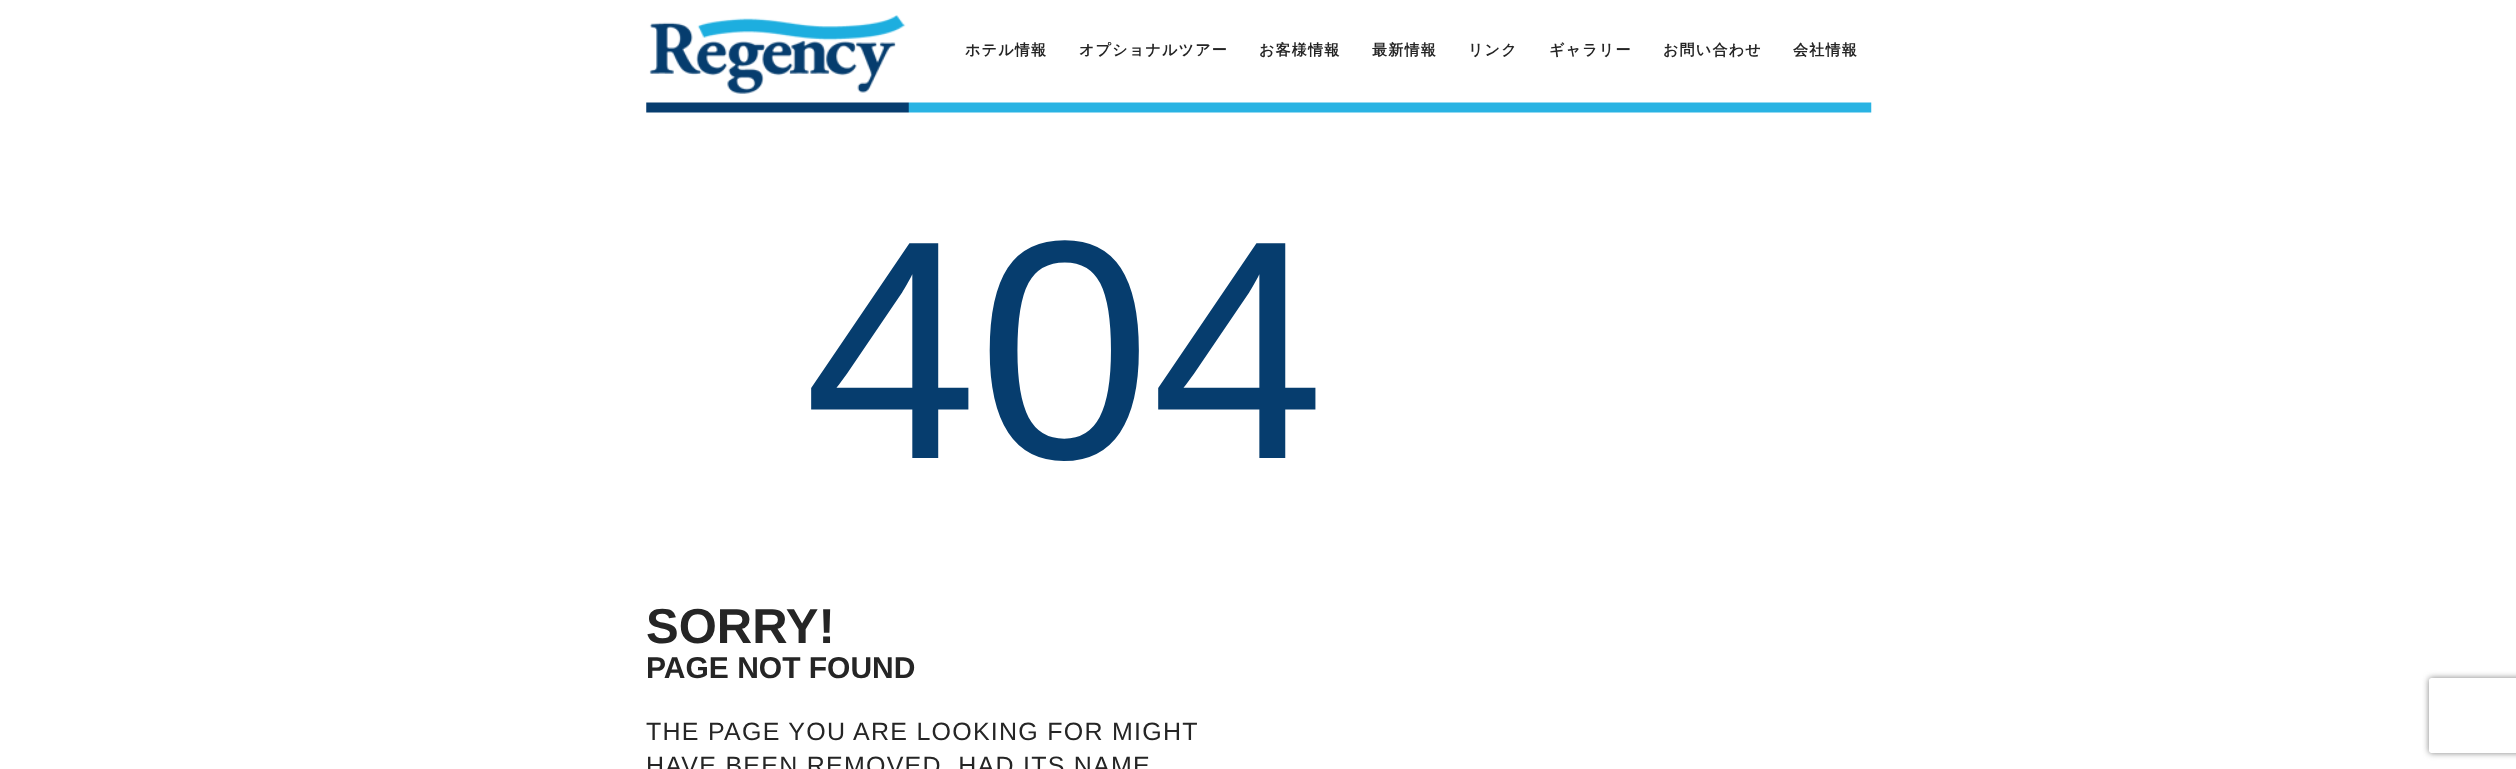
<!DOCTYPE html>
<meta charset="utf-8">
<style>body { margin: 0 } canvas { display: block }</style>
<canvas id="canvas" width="2516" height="769"></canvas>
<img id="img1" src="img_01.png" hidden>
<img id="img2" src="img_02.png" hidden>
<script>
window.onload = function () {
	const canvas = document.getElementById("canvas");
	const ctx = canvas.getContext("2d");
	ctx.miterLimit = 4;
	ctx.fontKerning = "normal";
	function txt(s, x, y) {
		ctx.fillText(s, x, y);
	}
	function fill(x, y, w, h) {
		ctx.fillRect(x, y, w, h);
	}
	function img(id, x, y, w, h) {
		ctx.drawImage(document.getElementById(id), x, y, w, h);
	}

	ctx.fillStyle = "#FFFFFF";
	fill(0, 0, 2516, 769);
	img("img1", 646, 102, 1226, 11);
	img("img2", 649, 15, 257, 79);
	ctx.save();
	ctx.beginPath();
	ctx.moveTo(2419, 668);
	ctx.lineTo(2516, 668);
	ctx.lineTo(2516, 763);
	ctx.lineTo(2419, 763);
	ctx.closePath();
	ctx.moveTo(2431.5, 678);
	ctx.lineTo(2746.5, 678);
	ctx.bezierCurveTo(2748, 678, 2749, 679, 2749, 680.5);
	ctx.lineTo(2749, 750.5);
	ctx.bezierCurveTo(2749, 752, 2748, 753, 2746.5, 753);
	ctx.lineTo(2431.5, 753);
	ctx.bezierCurveTo(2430, 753, 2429, 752, 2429, 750.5);
	ctx.lineTo(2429, 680.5);
	ctx.bezierCurveTo(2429, 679, 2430, 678, 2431.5, 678);
	ctx.closePath();
	ctx.clip("evenodd");
	ctx.fillStyle = "#808080";
	ctx.filter = "blur(3px)";
	ctx.beginPath();
	ctx.roundRect(2429, 678, 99, 75, 2.5);
	ctx.fill();
	ctx.filter = "none";
	ctx.restore();
	ctx.letterSpacing = "1.25px";
	ctx.font = "bold 15px WenQuanYi Zen Hei";
	ctx.fillStyle = "#252525";
	txt("ホテル情報", 965, 55);
	txt("オプショナルツアー", 1079, 55);
	txt("お客様情報", 1259, 55);
	txt("最新情報", 1372, 55);
	txt("リンク", 1468, 55);
	txt("ギャラリー", 1549, 55);
	txt("お問い合わせ", 1663, 55);
	txt("会社情報", 1793, 55);
	ctx.letterSpacing = "0px";
	ctx.font = "312px Liberation Sans";
	ctx.fillStyle = "#063D6E";
	txt("404", 804, 458);
	ctx.font = "bold 49px Liberation Sans";
	ctx.fillStyle = "#252525";
	txt("SORRY!", 646, 643);
	ctx.font = "bold 30px Liberation Sans";
	txt("PAGE NOT FOUND", 646, 678);
	ctx.letterSpacing = "1.25px";
	ctx.font = "25px Liberation Sans";
	txt("THE PAGE YOU ARE LOOKING FOR MIGHT", 646, 740);
	txt("HAVE BEEN REMOVED, HAD ITS NAME", 646, 774);
};
</script>
